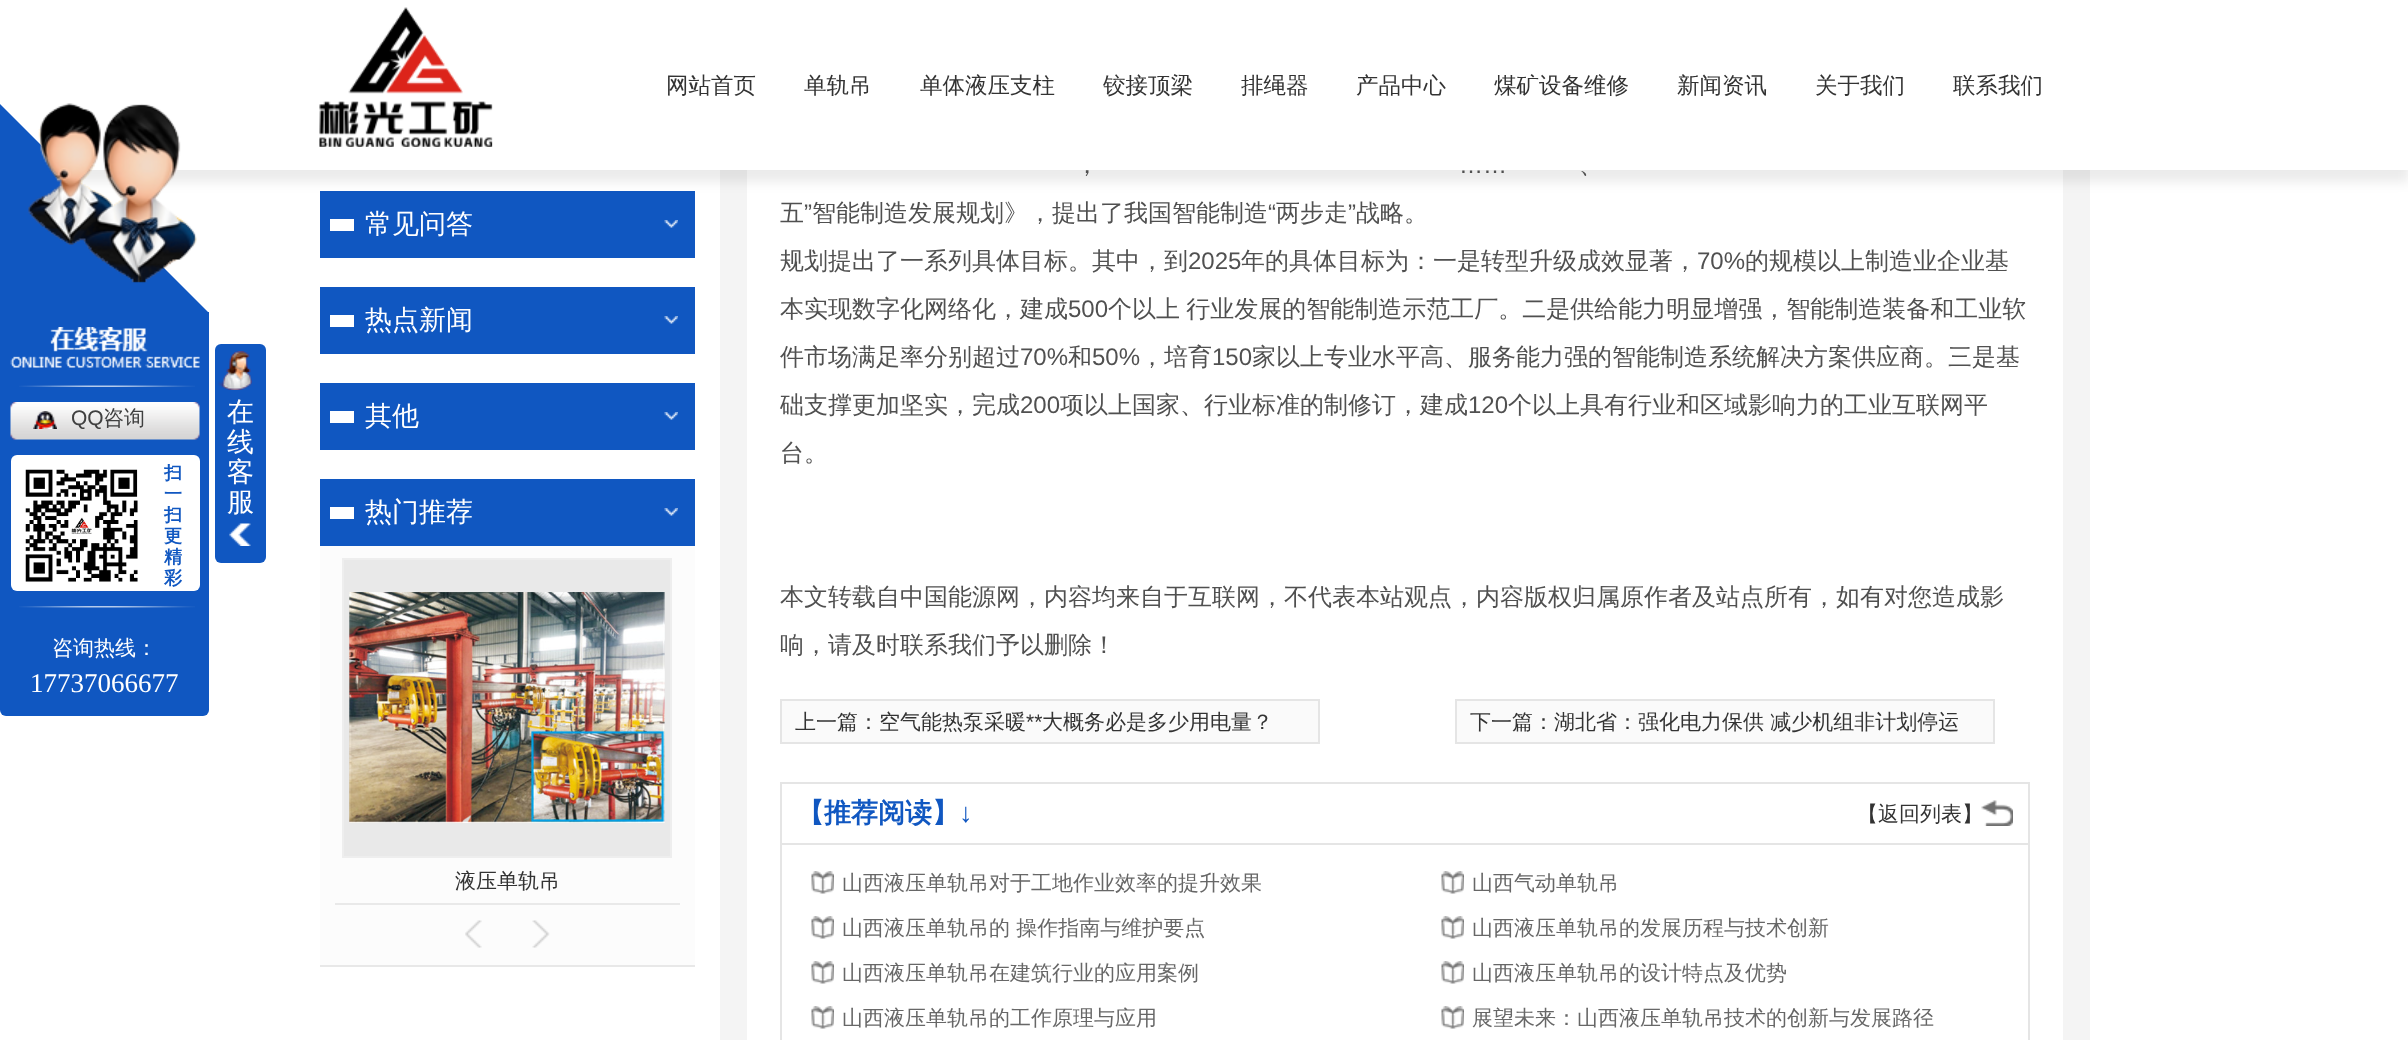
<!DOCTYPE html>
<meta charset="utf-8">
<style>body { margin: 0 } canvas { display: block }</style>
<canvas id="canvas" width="2408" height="1040"></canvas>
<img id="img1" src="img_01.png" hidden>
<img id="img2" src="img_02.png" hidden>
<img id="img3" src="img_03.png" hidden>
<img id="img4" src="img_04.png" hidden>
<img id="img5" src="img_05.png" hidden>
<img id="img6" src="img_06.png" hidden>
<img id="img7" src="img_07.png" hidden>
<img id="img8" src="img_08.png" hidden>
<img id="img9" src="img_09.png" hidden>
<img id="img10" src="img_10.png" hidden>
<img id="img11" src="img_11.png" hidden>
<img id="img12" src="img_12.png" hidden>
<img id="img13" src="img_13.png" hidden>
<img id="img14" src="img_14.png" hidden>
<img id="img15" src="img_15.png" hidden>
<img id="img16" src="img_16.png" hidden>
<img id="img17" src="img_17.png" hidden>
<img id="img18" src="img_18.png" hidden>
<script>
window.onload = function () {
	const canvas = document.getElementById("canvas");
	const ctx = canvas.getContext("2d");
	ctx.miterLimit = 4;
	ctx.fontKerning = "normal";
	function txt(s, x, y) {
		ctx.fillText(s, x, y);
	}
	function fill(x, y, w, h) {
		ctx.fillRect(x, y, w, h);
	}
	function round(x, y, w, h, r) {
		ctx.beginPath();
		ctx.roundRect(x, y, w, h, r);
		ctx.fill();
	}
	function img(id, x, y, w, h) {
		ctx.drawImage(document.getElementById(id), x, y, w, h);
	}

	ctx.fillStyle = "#FFFFFF";
	fill(0, 0, 2408, 1040);
	ctx.fillStyle = "#1057C1";
	fill(320, 191, 375, 67);
	ctx.strokeStyle = "#F4F4F4";
	ctx.lineWidth = 27;
	ctx.strokeRect(733.5, -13.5, 1343, 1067);
	ctx.fillStyle = "rgba(0, 0, 0, 0.08)";
	ctx.filter = "blur(6px)";
	ctx.beginPath();
	ctx.rect(0, 12, 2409, 170);
	ctx.fill();
	ctx.filter = "none";
	ctx.fillStyle = "#FFFFFF";
	fill(0, 0, 2408, 170);
	img("img1", 319, 7, 174, 140);
	ctx.fillStyle = "#1057C1";
	ctx.beginPath();
	ctx.moveTo(0, 104);
	ctx.lineTo(208, 312);
	ctx.lineTo(0, 312);
	ctx.closePath();
	ctx.fill();
	img("img2", 28, 103, 169, 180);
	ctx.beginPath();
	ctx.roundRect(0, 312, 209, 404, [0, 0, 6, 6]);
	ctx.fill();
	img("img3", 10, 327, 190, 41);
	img("img4", 19, 385, 176, 2);
	img("img5", 10, 402, 190, 38);
	img("img6", 33, 411, 24, 18);
	ctx.fillStyle = "#FFFFFF";
	round(11, 455, 189, 136, 6);
	img("img7", 25, 469, 113, 113);
	img("img8", 19, 606, 176, 2);
	ctx.fillStyle = "#1057C1";
	round(215, 344, 51, 219, 6);
	img("img9", 229, 523, 22, 23);
	img("img10", 218, 351, 34, 39);
	img("img11", 664, 220, 14, 8);
	ctx.fillStyle = "#FFFFFF";
	fill(330, 219, 24, 12);
	ctx.fillStyle = "#1057C1";
	fill(320, 287, 375, 67);
	img("img11", 664, 316, 14, 8);
	ctx.fillStyle = "#FFFFFF";
	fill(330, 315, 24, 12);
	ctx.fillStyle = "#1057C1";
	fill(320, 383, 375, 67);
	img("img11", 664, 412, 14, 8);
	ctx.fillStyle = "#FFFFFF";
	fill(330, 411, 24, 12);
	ctx.fillStyle = "#FCFCFC";
	fill(320, 546, 375, 419);
	ctx.fillStyle = "#E8E8E8";
	fill(320, 965, 375, 2);
	ctx.fillStyle = "#1057C1";
	fill(320, 479, 375, 67);
	img("img11", 664, 508, 14, 8);
	ctx.fillStyle = "#FFFFFF";
	fill(330, 507, 24, 12);
	ctx.fillStyle = "#E9E9E9";
	fill(335, 903, 345, 2);
	ctx.beginPath();
	ctx.rect(343, 559, 328, 298);
	ctx.fill();
	ctx.strokeStyle = "#EEEEEE";
	ctx.lineWidth = 2;
	ctx.stroke();
	img("img12", 349, 592, 316, 231);
	img("img13", 349, 592, 316, 231);
	img("img14", 465, 920, 17, 28);
	img("img15", 532, 920, 18, 28);
	ctx.fillStyle = "#FAFAFA";
	ctx.beginPath();
	ctx.rect(781, 700, 538, 43);
	ctx.fill();
	ctx.strokeStyle = "#E5E5E5";
	ctx.stroke();
	ctx.beginPath();
	ctx.rect(1456, 700, 538, 43);
	ctx.fill();
	ctx.stroke();
	ctx.strokeRect(781, 783, 1248, 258);
	ctx.fillStyle = "#E5E5E5";
	fill(782, 843, 1246, 2);
	img("img16", 1981, 800, 32, 26);
	img("img17", 811, 871, 23, 23);
	img("img18", 1441, 871, 23, 23);
	img("img17", 811, 916, 23, 23);
	img("img18", 1441, 916, 23, 23);
	img("img17", 811, 961, 23, 23);
	img("img18", 1441, 961, 23, 23);
	img("img17", 811, 1006, 23, 23);
	img("img18", 1441, 1006, 23, 23);
	ctx.font = "500 22.5px WenQuanYi Zen Hei";
	ctx.fillStyle = "#333333";
	txt("网站首页", 666, 93);
	txt("单轨吊", 804, 93);
	txt("单体液压支柱", 920, 93);
	txt("铰接顶梁", 1103, 93);
	txt("排绳器", 1241, 93);
	txt("产品中心", 1356, 93);
	txt("煤矿设备维修", 1494, 93);
	txt("新闻资讯", 1677, 93);
	txt("关于我们", 1815, 93);
	txt("联系我们", 1953, 93);
	ctx.font = "21px Liberation Sans";
	ctx.fillStyle = "#404040";
	txt("QQ", 71, 425);
	ctx.font = "500 21px WenQuanYi Zen Hei";
	txt("咨询", 103, 425);
	ctx.font = "bold 18px WenQuanYi Zen Hei";
	ctx.fillStyle = "#1057C1";
	txt("扫", 164, 479);
	txt("一", 164, 500);
	txt("扫", 164, 521);
	txt("更", 164, 542);
	txt("精", 164, 563);
	txt("彩", 164, 584);
	ctx.font = "500 21px WenQuanYi Zen Hei";
	ctx.fillStyle = "#FFFFFF";
	txt("咨询热线：", 52, 655);
	ctx.font = "27px Liberation Serif";
	txt("17737066677", 30, 692);
	ctx.font = "500 27px WenQuanYi Zen Hei";
	txt("在", 227, 421);
	txt("线", 227, 451);
	txt("客", 227, 481);
	txt("服", 227, 511);
	txt("常见问答", 365, 233);
	txt("热点新闻", 365, 329);
	txt("其他", 365, 425);
	txt("热门推荐", 365, 521);
	ctx.font = "500 21px WenQuanYi Zen Hei";
	ctx.fillStyle = "#333333";
	txt("液压单轨吊", 455, 888);
	ctx.wordSpacing = "-1px";
	ctx.font = "500 24px WenQuanYi Zen Hei";
	ctx.fillStyle = "#505050";
	txt("，", 1075, 173);
	ctx.wordSpacing = "0px";
	ctx.font = "24px Liberation Sans";
	txt("……", 1459, 173);
	ctx.font = "500 24px WenQuanYi Zen Hei";
	txt("、", 1579, 173);
	txt("五", 780, 221);
	ctx.font = "24px Liberation Sans";
	txt("”", 804, 221);
	ctx.font = "500 24px WenQuanYi Zen Hei";
	txt("智能制造发展规划》，提出了我国智能制造", 812, 221);
	ctx.font = "24px Liberation Sans";
	txt("“", 1268, 221);
	ctx.font = "500 24px WenQuanYi Zen Hei";
	txt("两步走", 1276, 221);
	ctx.font = "24px Liberation Sans";
	txt("”", 1348, 221);
	ctx.font = "500 24px WenQuanYi Zen Hei";
	txt("战略。", 1356, 221);
	txt("规划提出了一系列具体目标。其中，到", 780, 269);
	ctx.font = "24px Liberation Sans";
	txt("2025", 1188, 269);
	ctx.font = "500 24px WenQuanYi Zen Hei";
	txt("年的具体目标为：一是转型升级成效显著，", 1241, 269);
	ctx.font = "24px Liberation Sans";
	txt("70%", 1697, 269);
	ctx.font = "500 24px WenQuanYi Zen Hei";
	txt("的规模以上制造业企业基", 1745, 269);
	txt("本实现数字化网络化，建成", 780, 317);
	ctx.font = "24px Liberation Sans";
	txt("500", 1068, 317);
	ctx.wordSpacing = "-1px";
	ctx.font = "500 24px WenQuanYi Zen Hei";
	txt("个以上 行业发展的智能制造示范工厂。二是供给能力明显增强，智能制造装备和工业软", 1108, 317);
	ctx.wordSpacing = "0px";
	txt("件市场满足率分别超过", 780, 365);
	ctx.font = "24px Liberation Sans";
	txt("70%", 1020, 365);
	ctx.font = "500 24px WenQuanYi Zen Hei";
	txt("和", 1068, 365);
	ctx.font = "24px Liberation Sans";
	txt("50%", 1092, 365);
	ctx.font = "500 24px WenQuanYi Zen Hei";
	txt("，培育", 1140, 365);
	ctx.font = "24px Liberation Sans";
	txt("150", 1212, 365);
	ctx.font = "500 24px WenQuanYi Zen Hei";
	txt("家以上专业水平高、服务能力强的智能制造系统解决方案供应商。三是基", 1252, 365);
	txt("础支撑更加坚实，完成", 780, 413);
	ctx.font = "24px Liberation Sans";
	txt("200", 1020, 413);
	ctx.font = "500 24px WenQuanYi Zen Hei";
	txt("项以上国家、行业标准的制修订，建成", 1060, 413);
	ctx.font = "24px Liberation Sans";
	txt("120", 1468, 413);
	ctx.font = "500 24px WenQuanYi Zen Hei";
	txt("个以上具有行业和区域影响力的工业互联网平", 1508, 413);
	txt("台。", 780, 461);
	txt("本文转载自中国能源网，内容均来自于互联网，不代表本站观点，内容版权归属原作者及站点所有，如有对您造成影", 780, 605);
	txt("响，请及时联系我们予以删除！", 780, 653);
	ctx.font = "500 21px WenQuanYi Zen Hei";
	ctx.fillStyle = "#333333";
	txt("上一篇：空气能热泵采暖", 795, 729);
	ctx.font = "21px Liberation Sans";
	txt("**", 1026, 729);
	ctx.font = "500 21px WenQuanYi Zen Hei";
	txt("大概务必是多少用电量？", 1042, 729);
	txt("下一篇：", 1470, 729);
	txt("湖北省：强化电力保供 减少机组非计划停运", 1554, 729);
	ctx.font = "bold 27px WenQuanYi Zen Hei";
	ctx.fillStyle = "#1057C1";
	txt("【推荐阅读】", 797, 822);
	ctx.font = "bold 27px Liberation Sans";
	txt("↓", 959, 822);
	ctx.font = "500 21px WenQuanYi Zen Hei";
	ctx.fillStyle = "#333333";
	txt("【返回列表】", 1857, 821);
	ctx.fillStyle = "#676767";
	txt("山西液压单轨吊对于工地作业效率的提升效果", 842, 890);
	txt("山西气动单轨吊", 1472, 890);
	txt("山西液压单轨吊的 操作指南与维护要点", 842, 935);
	txt("山西液压单轨吊的发展历程与技术创新", 1472, 935);
	txt("山西液压单轨吊在建筑行业的应用案例", 842, 980);
	txt("山西液压单轨吊的设计特点及优势", 1472, 980);
	txt("山西液压单轨吊的工作原理与应用", 842, 1025);
	txt("展望未来：山西液压单轨吊技术的创新与发展路径", 1472, 1025);
};
</script>
